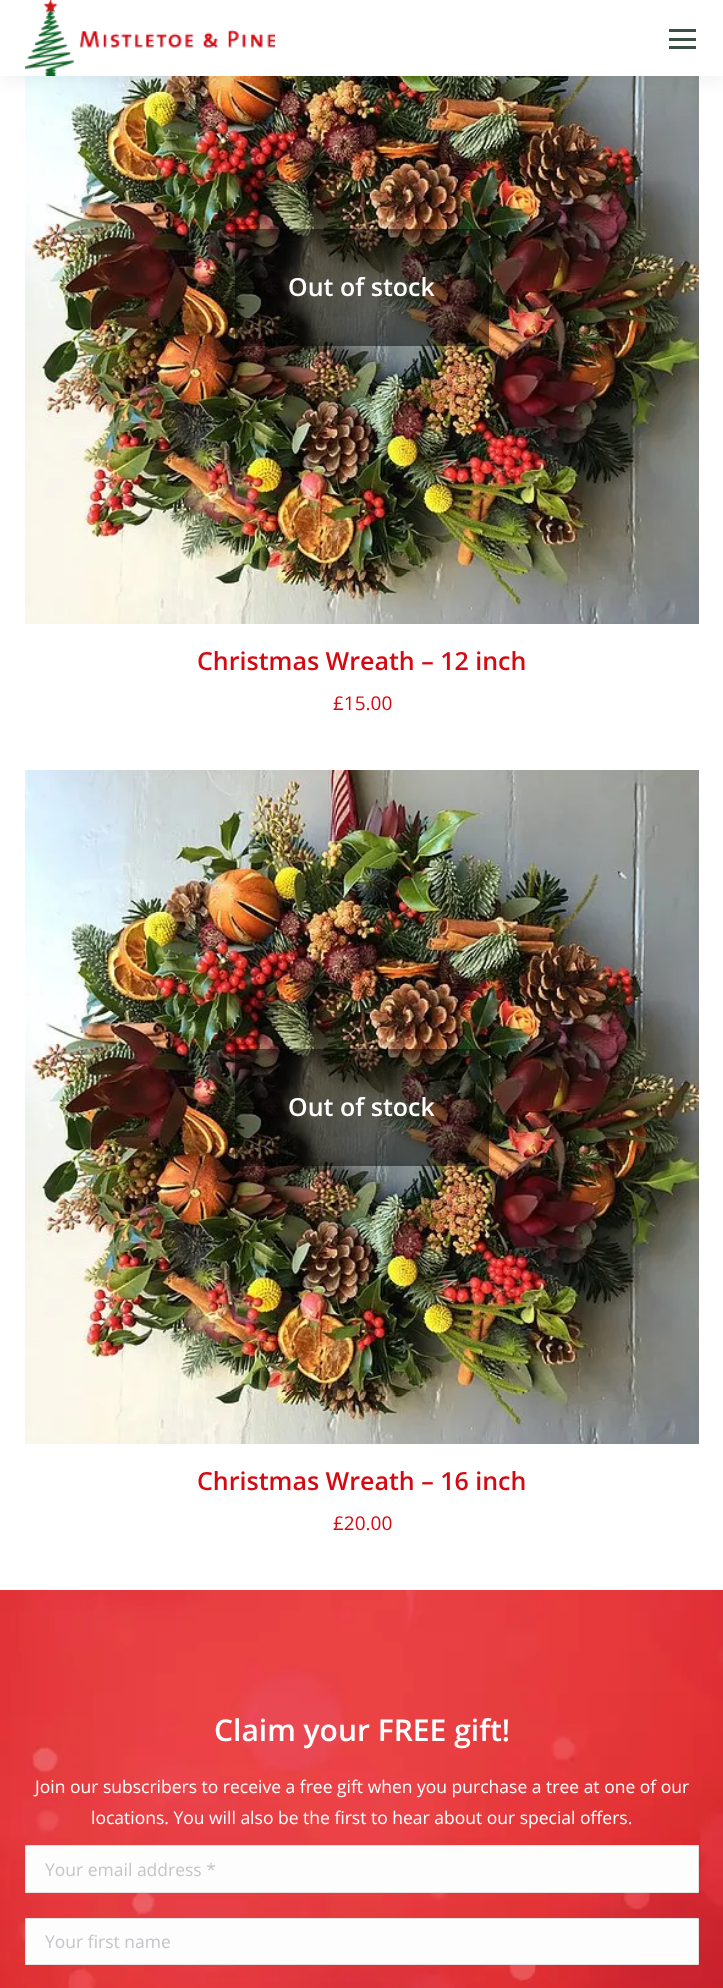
<!DOCTYPE html>
<meta charset="utf-8">
<style>body { margin: 0 } canvas { display: block }</style>
<canvas id="canvas" width="723" height="1988"></canvas>
<img id="img1" src="img_02.png" hidden>
<img id="img2" src="img_01.png" hidden>
<img id="img3" src="img_03.png" hidden>
<img id="img4" src="img_04.png" hidden>
<script>
window.onload = function () {
	const canvas = document.getElementById("canvas");
	const ctx = canvas.getContext("2d");
	ctx.miterLimit = 4;
	ctx.fontKerning = "normal";
	function txt(s, x, y) {
		ctx.fillText(s, x, y);
	}
	function fill(x, y, w, h) {
		ctx.fillRect(x, y, w, h);
	}
	function round(x, y, w, h, r) {
		ctx.beginPath();
		ctx.roundRect(x, y, w, h, r);
		ctx.fill();
	}
	function img(id, x, y, w, h) {
		ctx.drawImage(document.getElementById(id), x, y, w, h);
	}

	ctx.fillStyle = "#FFFFFF";
	fill(0, 0, 723, 1988);
	img("img1", 25, 76, 674, 548);
	ctx.fillStyle = "rgba(0, 0, 0, 0.07)";
	ctx.filter = "blur(9.5px)";
	ctx.beginPath();
	ctx.rect(-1, -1, 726, 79);
	ctx.fill();
	ctx.filter = "none";
	ctx.fillStyle = "#FFFFFF";
	fill(0, 0, 723, 76);
	img("img2", 25, 0, 250, 76);
	ctx.fillStyle = "#3B4F44";
	fill(669, 29, 27, 3);
	fill(669, 38, 27, 3);
	fill(669, 46, 27, 3);
	ctx.fillStyle = "rgba(0, 0, 0, 0.5)";
	fill(235, 229, 254, 117);
	img("img3", 25, 770, 674, 674);
	fill(235, 1049, 254, 117);
	img("img4", 0, 1590, 723, 398);
	ctx.fillStyle = "#FDFDFD";
	round(25, 1845, 674, 48, 1);
	ctx.strokeStyle = "rgba(51, 51, 51, 0.12)";
	ctx.strokeRect(25.5, 1845.5, 673, 47);
	round(25, 1918, 674, 47, 1);
	ctx.strokeRect(25.5, 1918.5, 673, 46);
	ctx.font = "600 25px Open Sans";
	ctx.fillStyle = "#FFFFFF";
	txt("Out of stock", 288, 296);
	ctx.fillStyle = "#D60812";
	txt("Christmas Wreath – 12 inch", 197, 670);
	ctx.font = "19px Open Sans";
	txt("£15.00", 333, 710);
	ctx.font = "600 25px Open Sans";
	ctx.fillStyle = "#FFFFFF";
	txt("Out of stock", 288, 1116);
	ctx.fillStyle = "#D60812";
	txt("Christmas Wreath – 16 inch", 197, 1490);
	ctx.font = "19px Open Sans";
	txt("£20.00", 333, 1530);
	ctx.font = "600 30px Open Sans";
	ctx.fillStyle = "#FFFFFF";
	txt("Claim your FREE gift!", 214, 1741);
	ctx.font = "17.5px Open Sans";
	txt("Join our subscribers to receive a free gift when you purchase a tree at one of our", 35, 1793);
	txt("locations. You will also be the first to hear about our special offers.", 91, 1824);
	ctx.fillStyle = "#C4C5C9";
	txt("Your email address *", 45, 1876);
	txt("Your first name", 45, 1948);
};
</script>
